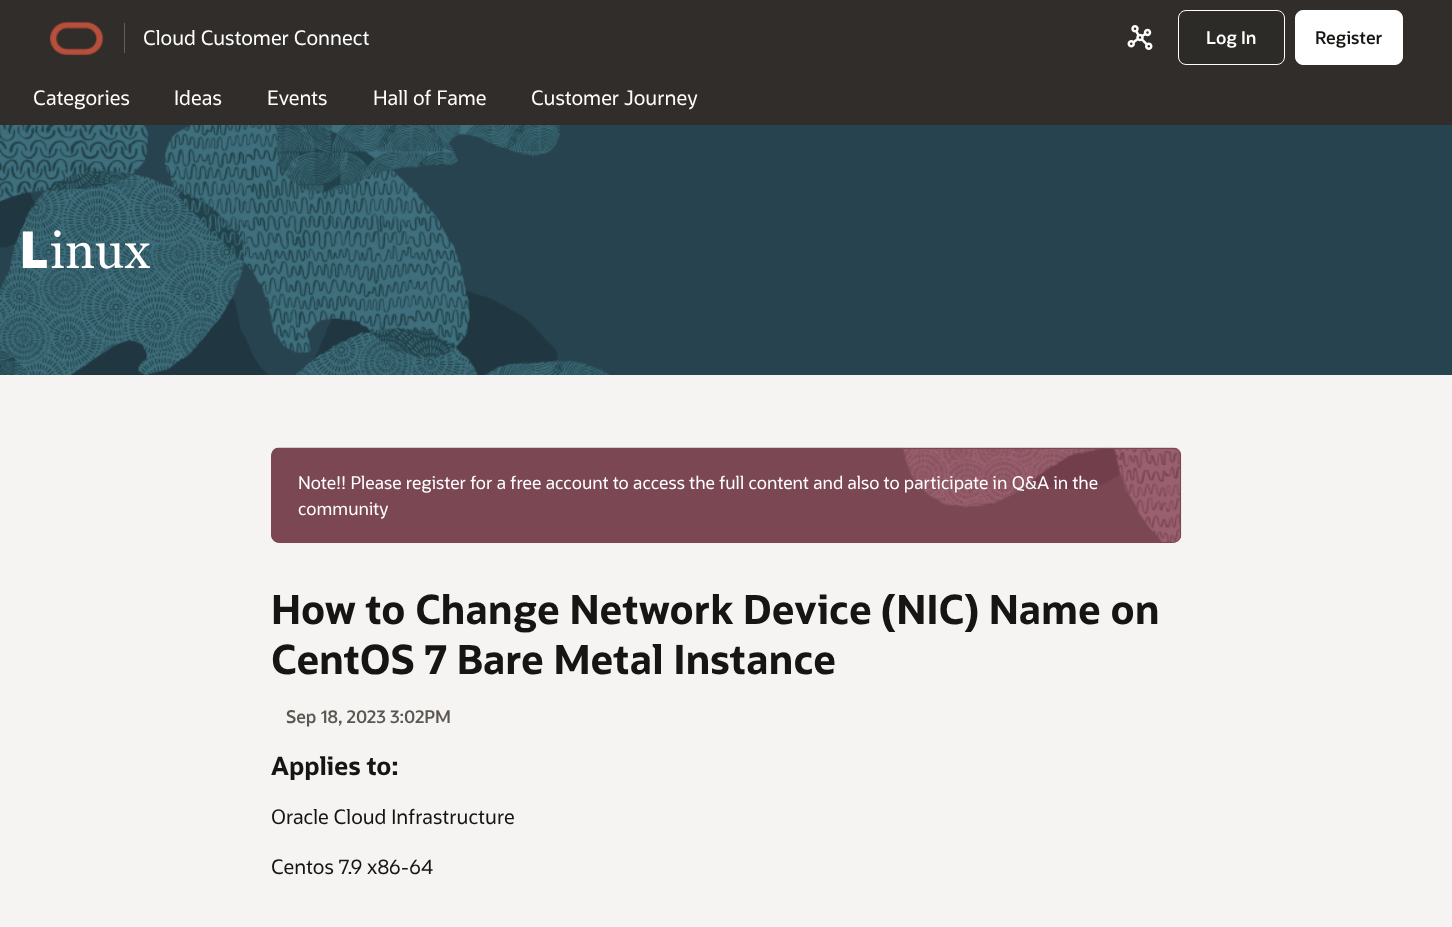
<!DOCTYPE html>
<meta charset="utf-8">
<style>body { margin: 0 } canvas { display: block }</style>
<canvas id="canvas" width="1452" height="927"></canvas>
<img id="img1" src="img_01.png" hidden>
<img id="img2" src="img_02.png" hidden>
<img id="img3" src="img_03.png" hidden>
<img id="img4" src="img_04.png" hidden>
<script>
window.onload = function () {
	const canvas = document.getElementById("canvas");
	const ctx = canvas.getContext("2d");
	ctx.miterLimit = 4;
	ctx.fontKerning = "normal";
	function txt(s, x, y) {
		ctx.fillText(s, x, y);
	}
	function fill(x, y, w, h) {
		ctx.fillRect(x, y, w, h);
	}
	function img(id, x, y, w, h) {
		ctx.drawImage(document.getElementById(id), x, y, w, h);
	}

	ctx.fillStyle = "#F5F4F2";
	fill(0, 0, 1452, 927);
	ctx.fillStyle = "#302D2A";
	fill(0, 0, 1452, 75);
	img("img1", 50, 21, 54, 34);
	ctx.fillStyle = "#665F5B";
	fill(124, 23, 1, 30);
	img("img2", 1127, 25, 26, 25);
	ctx.fillStyle = "#2D2B28";
	ctx.beginPath();
	ctx.roundRect(1178.5, 10.5, 106, 54, 7.5);
	ctx.fill();
	ctx.strokeStyle = "#FFFFFF";
	ctx.stroke();
	ctx.fillStyle = "#FFFFFF";
	ctx.beginPath();
	ctx.roundRect(1295.5, 10.5, 107, 54, 7.5);
	ctx.fill();
	ctx.stroke();
	ctx.fillStyle = "#312D2A";
	fill(0, 75, 1452, 50);
	ctx.fillStyle = "#284350";
	fill(610, 125, 842, 250);
	img("img3", 0, 125, 610, 250);
	img("img4", 271, 447, 911, 96);
	ctx.beginPath();
	ctx.roundRect(271.5, 448.5, 909, 94, 7.5);
	ctx.strokeStyle = "#7A4752";
	ctx.stroke();
	ctx.font = "20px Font";
	ctx.fillStyle = "#FFFFFF";
	txt("Cloud Customer Connect", 143, 45);
	ctx.font = "600 17.5px Font";
	txt("Log In", 1206, 44);
	ctx.fillStyle = "#161513";
	txt("Register", 1315, 44);
	ctx.font = "20px Font";
	ctx.fillStyle = "#FFFFFF";
	txt("Categories", 33, 105);
	txt("Ideas", 174, 105);
	txt("Events", 267, 105);
	txt("Hall of Fame", 373, 105);
	txt("Customer Journey", 531, 105);
	ctx.font = "900 51px Noto Sans";
	txt("L", 19, 268);
	ctx.font = "51px Georgia";
	txt("inux", 50, 268);
	ctx.font = "17.5px Font";
	txt("Note!! Please register for a free account to access the full content and also to participate in Q&A in the", 298, 489);
	txt("community", 298, 515);
	ctx.font = "bold 40px Font";
	ctx.fillStyle = "#161513";
	txt("How to Change Network Device (NIC) Name on", 271, 624);
	txt("CentOS 7 Bare Metal Instance", 271, 674);
	ctx.font = "600 17.5px Font";
	ctx.fillStyle = "#5B5652";
	txt("Sep 18, 2023 3:02PM", 286, 723);
	ctx.font = "bold 25px Font";
	ctx.fillStyle = "#161513";
	txt("Applies to:", 271, 775);
	ctx.font = "20px Font";
	txt("Oracle Cloud Infrastructure", 271, 824);
	txt("Centos 7.9 x86-64", 271, 874);
};
</script>
